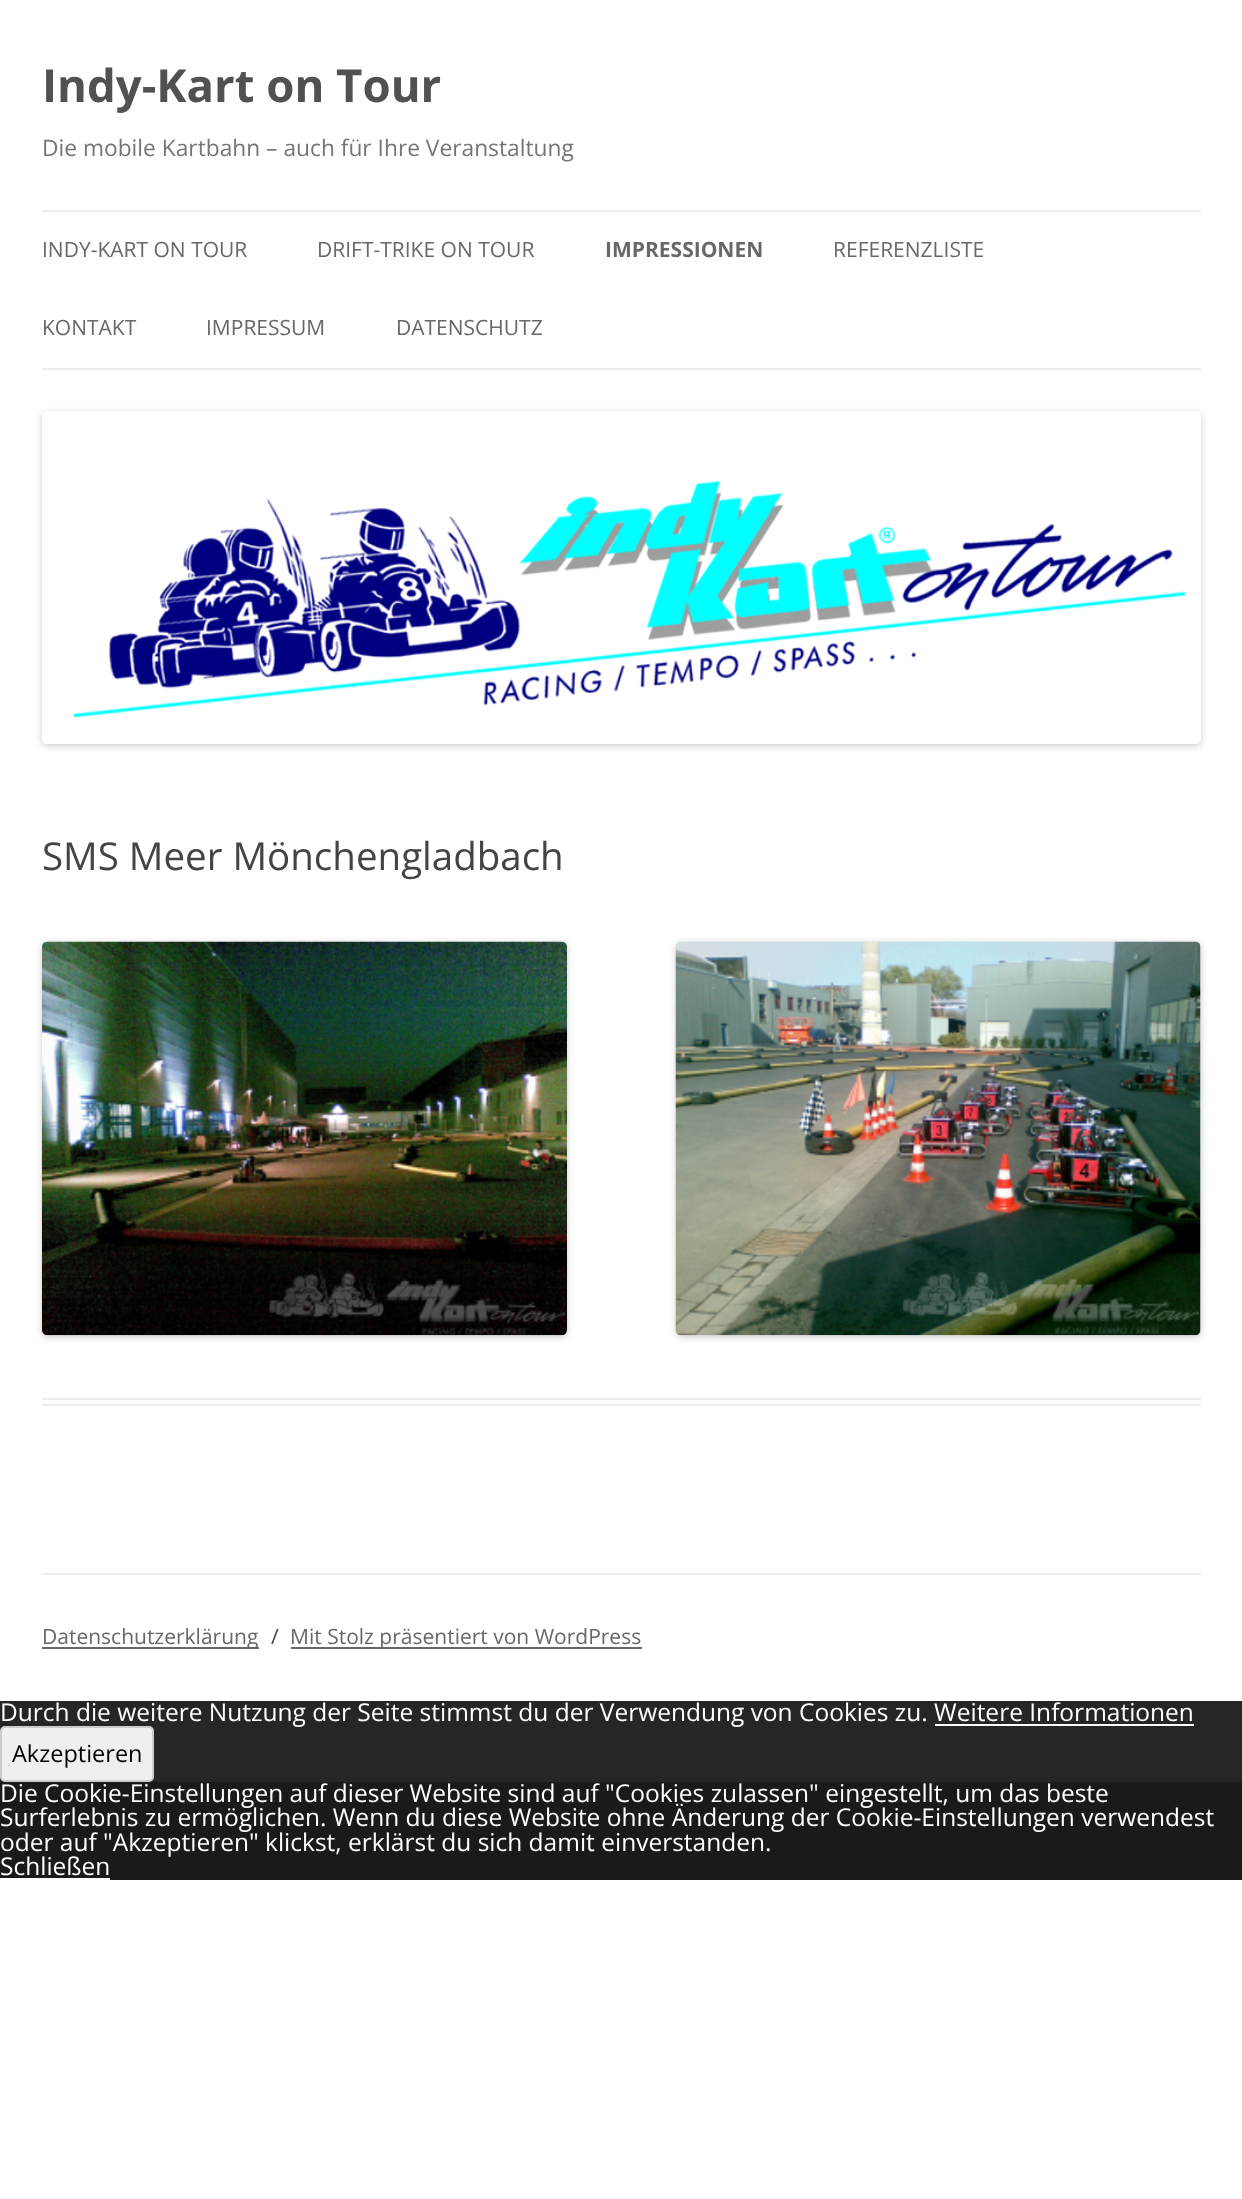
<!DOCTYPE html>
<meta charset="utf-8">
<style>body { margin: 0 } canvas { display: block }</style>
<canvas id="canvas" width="1242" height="2199"></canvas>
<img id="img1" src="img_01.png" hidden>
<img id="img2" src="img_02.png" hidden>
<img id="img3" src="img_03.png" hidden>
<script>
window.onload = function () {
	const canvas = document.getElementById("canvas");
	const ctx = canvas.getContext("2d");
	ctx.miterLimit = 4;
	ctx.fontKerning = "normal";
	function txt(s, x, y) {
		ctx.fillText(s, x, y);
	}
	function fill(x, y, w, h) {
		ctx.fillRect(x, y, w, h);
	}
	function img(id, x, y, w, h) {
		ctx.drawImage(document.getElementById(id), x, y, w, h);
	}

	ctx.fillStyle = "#FFFFFF";
	fill(0, 0, 1242, 2199);
	ctx.fillStyle = "#EDEDED";
	fill(42, 210, 1159, 2);
	fill(42, 368, 1159, 2);
	ctx.save();
	ctx.beginPath();
	ctx.moveTo(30, 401);
	ctx.lineTo(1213, 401);
	ctx.lineTo(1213, 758);
	ctx.lineTo(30, 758);
	ctx.closePath();
	ctx.moveTo(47, 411);
	ctx.lineTo(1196, 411);
	ctx.bezierCurveTo(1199, 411, 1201, 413, 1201, 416);
	ctx.lineTo(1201, 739);
	ctx.bezierCurveTo(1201, 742, 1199, 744, 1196, 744);
	ctx.lineTo(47, 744);
	ctx.bezierCurveTo(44, 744, 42, 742, 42, 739);
	ctx.lineTo(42, 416);
	ctx.bezierCurveTo(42, 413, 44, 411, 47, 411);
	ctx.closePath();
	ctx.clip("evenodd");
	ctx.fillStyle = "rgba(0, 0, 0, 0.2)";
	ctx.filter = "blur(3.5px)";
	ctx.beginPath();
	ctx.roundRect(42, 413, 1159, 333, 5);
	ctx.fill();
	ctx.filter = "none";
	ctx.restore();
	img("img1", 73, 480, 1114, 239);
	fill(42, 1398, 1159, 2);
	fill(42, 1404, 1159, 2);
	ctx.fillStyle = "rgba(0, 0, 0, 0.2)";
	ctx.filter = "blur(3.5px)";
	ctx.beginPath();
	ctx.roundRect(42, 943, 525, 394, 5);
	ctx.fill();
	ctx.filter = "none";
	img("img2", 42, 941, 525, 395);
	ctx.filter = "blur(3.5px)";
	ctx.beginPath();
	ctx.roundRect(676, 943, 525, 394, 5);
	ctx.fill();
	ctx.filter = "none";
	img("img3", 675, 941, 526, 395);
	ctx.fillStyle = "#EDEDED";
	fill(42, 1573, 1159, 2);
	ctx.fillStyle = "#686868";
	fill(42, 1647, 217, 2);
	fill(291, 1647, 351, 2);
	ctx.fillStyle = "#262626";
	fill(0, 1701, 1242, 81);
	ctx.fillStyle = "#FFFFFF";
	fill(935, 1724, 259, 2);
	ctx.fillStyle = "#1A1A1A";
	fill(0, 1782, 1242, 98);
	ctx.fillStyle = "#FFFFFF";
	fill(0, 1878, 110, 2);
	ctx.font = "bold 45.5px Open Sans";
	ctx.fillStyle = "#515151";
	txt("Indy-Kart on Tour", 42, 102);
	ctx.font = "22.75px Open Sans";
	ctx.fillStyle = "#757575";
	txt("Die mobile Kartbahn – auch für Ihre Veranstaltung", 42, 156);
	ctx.font = "21px Open Sans";
	ctx.fillStyle = "#686868";
	txt("INDY-KART ON TOUR", 42, 257);
	txt("DRIFT-TRIKE ON TOUR", 317, 257);
	ctx.font = "bold 21px Open Sans";
	txt("IMPRESSIONEN", 605, 257);
	ctx.font = "21px Open Sans";
	txt("REFERENZLISTE", 833, 257);
	txt("KONTAKT", 42, 335);
	txt("IMPRESSUM", 206, 335);
	txt("DATENSCHUTZ", 396, 335);
	ctx.font = "38.5px Open Sans";
	ctx.fillStyle = "#444444";
	txt("SMS Meer Mönchengladbach", 42, 870);
	ctx.font = "21px Open Sans";
	ctx.fillStyle = "#686868";
	txt("Datenschutzerklärung", 42, 1644);
	ctx.fillStyle = "#444444";
	txt("/", 271, 1644);
	ctx.fillStyle = "#686868";
	txt("Mit Stolz präsentiert von WordPress", 290, 1644);
	ctx.font = "24.5px Open Sans";
	ctx.fillStyle = "#FFFFFF";
	txt("Durch die weitere Nutzung der Seite stimmst du der Verwendung von Cookies zu. Weitere Informationen", 0, 1721);
	ctx.fillStyle = "#EFEFEF";
	ctx.beginPath();
	ctx.roundRect(1, 1727, 152, 54, 4);
	ctx.fill();
	ctx.strokeStyle = "#CCCCCC";
	ctx.lineWidth = 2;
	ctx.stroke();
	ctx.font = "23.5px Open Sans";
	ctx.fillStyle = "#000000";
	txt("Akzeptieren", 12, 1762);
	ctx.font = "24.5px Open Sans";
	ctx.fillStyle = "#FFFFFF";
	txt("Die Cookie-Einstellungen auf dieser Website sind auf \"Cookies zulassen\" eingestellt, um das beste", 0, 1802);
	txt("Surferlebnis zu ermöglichen. Wenn du diese Website ohne Änderung der Cookie-Einstellungen verwendest", 0, 1826);
	txt("oder auf \"Akzeptieren\" klickst, erklärst du sich damit einverstanden.", 0, 1851);
	txt("Schließen", 0, 1875);
};
</script>
